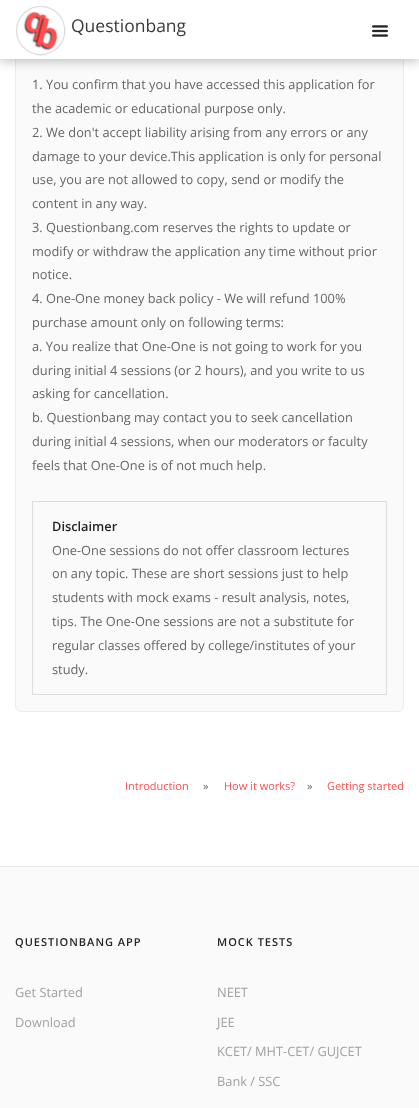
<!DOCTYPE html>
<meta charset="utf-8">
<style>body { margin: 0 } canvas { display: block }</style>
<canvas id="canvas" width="419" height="1108"></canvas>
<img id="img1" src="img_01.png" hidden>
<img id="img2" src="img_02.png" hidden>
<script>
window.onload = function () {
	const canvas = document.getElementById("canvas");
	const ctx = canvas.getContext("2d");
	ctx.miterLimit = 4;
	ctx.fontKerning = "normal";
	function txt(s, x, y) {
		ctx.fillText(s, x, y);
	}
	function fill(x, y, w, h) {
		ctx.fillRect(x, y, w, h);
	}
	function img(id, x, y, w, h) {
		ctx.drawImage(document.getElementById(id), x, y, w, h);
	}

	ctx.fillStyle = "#FFFFFF";
	fill(0, 0, 419, 1108);
	ctx.fillStyle = "#FAFAFA";
	ctx.beginPath();
	ctx.roundRect(15.5, -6.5, 388, 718, 5.5);
	ctx.fill();
	ctx.strokeStyle = "#ECECEC";
	ctx.stroke();
	ctx.fillStyle = "rgba(0, 0, 0, 0.25)";
	ctx.filter = "blur(5.5px)";
	ctx.beginPath();
	ctx.rect(-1, 0, 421, 61);
	ctx.fill();
	ctx.filter = "none";
	ctx.fillStyle = "#FFFFFF";
	fill(0, 0, 419, 59);
	img("img1", 16, 6, 50, 50);
	img("img2", 372, 25, 16, 12);
	ctx.strokeStyle = "#DDDDDD";
	ctx.strokeRect(32.5, 501.5, 354, 193);
	ctx.fillStyle = "#FAFAFA";
	fill(0, 867, 419, 241);
	ctx.fillStyle = "#EBEBEB";
	fill(0, 866, 419, 1);
	ctx.font = "17.5px Open Sans";
	ctx.fillStyle = "#3A3A3A";
	txt("Questionbang", 71, 32);
	ctx.font = "12.8px Open Sans";
	ctx.fillStyle = "#666666";
	txt("1. You confirm that you have accessed this application for", 32, 89);
	txt("the academic or educational purpose only.", 32, 113);
	txt("2. We don't accept liability arising from any errors or any", 32, 137);
	txt("damage to your device.This application is only for personal", 32, 161);
	txt("use, you are not allowed to copy, send or modify the", 32, 184);
	txt("content in any way.", 32, 208);
	txt("3. Questionbang.com reserves the rights to update or", 32, 232);
	txt("modify or withdraw the application any time without prior", 32, 256);
	txt("notice.", 32, 279);
	txt("4. One-One money back policy - We will refund 100%", 32, 303);
	txt("purchase amount only on following terms:", 32, 327);
	txt("a. You realize that One-One is not going to work for you", 32, 351);
	txt("during initial 4 sessions (or 2 hours), and you write to us", 32, 375);
	txt("asking for cancellation.", 32, 398);
	txt("b. Questionbang may contact you to seek cancellation", 32, 422);
	txt("during initial 4 sessions, when our moderators or faculty", 32, 446);
	txt("feels that One-One is of not much help.", 32, 470);
	ctx.font = "600 12.8px Open Sans";
	ctx.fillStyle = "#252525";
	txt("Disclaimer", 52, 531);
	ctx.font = "12.8px Open Sans";
	ctx.fillStyle = "#666666";
	txt("One-One sessions do not offer classroom lectures", 52, 555);
	txt("on any topic. These are short sessions just to help", 52, 578);
	txt("students with mock exams - result analysis, notes,", 52, 602);
	txt("tips. The One-One sessions are not a substitute for", 52, 626);
	txt("regular classes offered by college/institutes of your", 52, 650);
	txt("study.", 52, 674);
	ctx.font = "11px Open Sans";
	ctx.fillStyle = "#FF4F4F";
	txt("Introduction", 125, 790);
	ctx.fillStyle = "#666666";
	txt("»", 203, 790);
	ctx.fillStyle = "#FF4F4F";
	txt("How it works?", 224, 790);
	ctx.fillStyle = "#666666";
	txt("»", 307, 790);
	ctx.fillStyle = "#FF4F4F";
	txt("Getting started", 327, 790);
	ctx.letterSpacing = "1px";
	ctx.font = "600 11px Open Sans";
	ctx.fillStyle = "#252525";
	txt("QUESTIONBANG APP", 15, 946);
	ctx.letterSpacing = "0px";
	ctx.font = "12.8px Open Sans";
	ctx.fillStyle = "#A1A1A1";
	txt("Get Started", 15, 997);
	txt("Download", 15, 1027);
	ctx.letterSpacing = "1px";
	ctx.font = "600 11px Open Sans";
	ctx.fillStyle = "#252525";
	txt("MOCK TESTS", 217, 946);
	ctx.letterSpacing = "0px";
	ctx.font = "12.8px Open Sans";
	ctx.fillStyle = "#A1A1A1";
	txt("NEET", 217, 997);
	txt("JEE", 217, 1027);
	txt("KCET/ MHT-CET/ GUJCET", 217, 1056);
	txt("Bank / SSC", 217, 1086);
};
</script>
